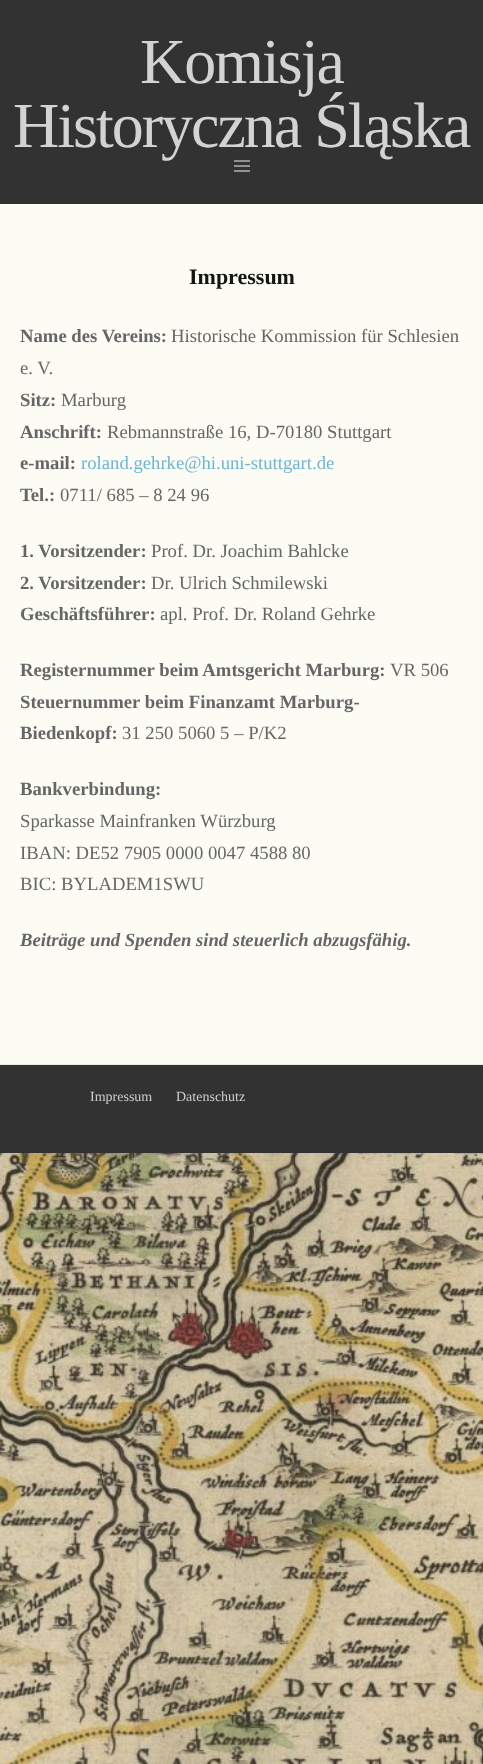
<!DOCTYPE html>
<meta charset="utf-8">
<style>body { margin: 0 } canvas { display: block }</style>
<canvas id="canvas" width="483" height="1764"></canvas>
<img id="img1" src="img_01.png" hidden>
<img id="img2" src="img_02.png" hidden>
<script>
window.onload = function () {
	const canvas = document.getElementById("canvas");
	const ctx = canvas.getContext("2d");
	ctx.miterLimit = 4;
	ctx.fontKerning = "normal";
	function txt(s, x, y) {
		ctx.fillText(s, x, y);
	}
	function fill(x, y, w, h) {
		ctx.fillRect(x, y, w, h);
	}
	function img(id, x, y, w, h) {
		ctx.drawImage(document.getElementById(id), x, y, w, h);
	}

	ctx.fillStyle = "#FFFFFF";
	fill(0, 0, 483, 1764);
	img("img1", 0, 1153, 483, 611);
	ctx.fillStyle = "#323232";
	fill(0, 0, 483, 204);
	ctx.fillStyle = "#FCFCF4";
	fill(0, 204, 483, 860);
	ctx.fillStyle = "#E8E8E0";
	fill(0, 1064, 483, 1);
	ctx.fillStyle = "#323232";
	fill(0, 1065, 483, 88);
	ctx.letterSpacing = "-2px";
	ctx.font = "64px Liberation Serif";
	ctx.fillStyle = "#D3D3D3";
	txt("Komisja", 140, 83);
	txt("Historyczna Śląska", 13, 147);
	img("img2", 234, 160, 16, 12);
	ctx.letterSpacing = "0px";
	ctx.font = "bold 22px Liberation Serif";
	ctx.fillStyle = "#141414";
	txt("Impressum", 189, 284);
	ctx.font = "bold 18.7px Liberation Serif";
	ctx.fillStyle = "#666666";
	txt("Name des Vereins:", 20, 342);
	ctx.font = "18.7px Liberation Serif";
	txt("Historische Kommission für Schlesien", 171, 342);
	txt("e. V.", 20, 374);
	ctx.font = "bold 18.7px Liberation Serif";
	txt("Sitz:", 20, 406);
	ctx.font = "18.7px Liberation Serif";
	txt("Marburg", 61, 406);
	ctx.font = "bold 18.7px Liberation Serif";
	txt("Anschrift:", 20, 438);
	ctx.font = "18.7px Liberation Serif";
	txt("Rebmannstraße 16, D-70180 Stuttgart", 107, 438);
	ctx.font = "bold 18.7px Liberation Serif";
	txt("e-mail:", 20, 469);
	ctx.font = "18.7px Liberation Serif";
	ctx.fillStyle = "#6CB7D3";
	txt("roland.gehrke@hi.uni-stuttgart.de", 81, 469);
	ctx.font = "bold 18.7px Liberation Serif";
	ctx.fillStyle = "#666666";
	txt("Tel.:", 20, 501);
	ctx.font = "18.7px Liberation Serif";
	txt("0711/ 685 – 8 24 96", 60, 501);
	ctx.font = "bold 18.7px Liberation Serif";
	txt("1. Vorsitzender:", 20, 557);
	ctx.font = "18.7px Liberation Serif";
	txt("Prof. Dr. Joachim Bahlcke", 151, 557);
	ctx.font = "bold 18.7px Liberation Serif";
	txt("2. Vorsitzender:", 20, 589);
	ctx.font = "18.7px Liberation Serif";
	txt("Dr. Ulrich Schmilewski", 151, 589);
	ctx.font = "bold 18.7px Liberation Serif";
	txt("Geschäftsführer:", 20, 620);
	ctx.font = "18.7px Liberation Serif";
	txt("apl. Prof. Dr. Roland Gehrke", 160, 620);
	ctx.font = "bold 18.7px Liberation Serif";
	txt("Registernummer beim Amtsgericht Marburg:", 20, 676);
	ctx.font = "18.7px Liberation Serif";
	txt("VR 506", 390, 676);
	ctx.font = "bold 18.7px Liberation Serif";
	txt("Steuernummer beim Finanzamt Marburg-", 20, 708);
	txt("Biedenkopf:", 20, 739);
	ctx.font = "18.7px Liberation Serif";
	txt("31 250 5060 5 – P/K2", 122, 739);
	ctx.font = "bold 18.7px Liberation Serif";
	txt("Bankverbindung:", 20, 795);
	ctx.font = "18.7px Liberation Serif";
	txt("Sparkasse Mainfranken Würzburg", 20, 827);
	txt("IBAN: DE52 7905 0000 0047 4588 80", 20, 859);
	txt("BIC: BYLADEM1SWU", 20, 890);
	ctx.font = "italic bold 18.7px Liberation Serif";
	txt("Beiträge und Spenden sind steuerlich abzugsfähig.", 20, 946);
	ctx.font = "14px Liberation Serif";
	ctx.fillStyle = "#CDCDCD";
	txt("Impressum", 90, 1101);
	txt("Datenschutz", 176, 1101);
};
</script>
